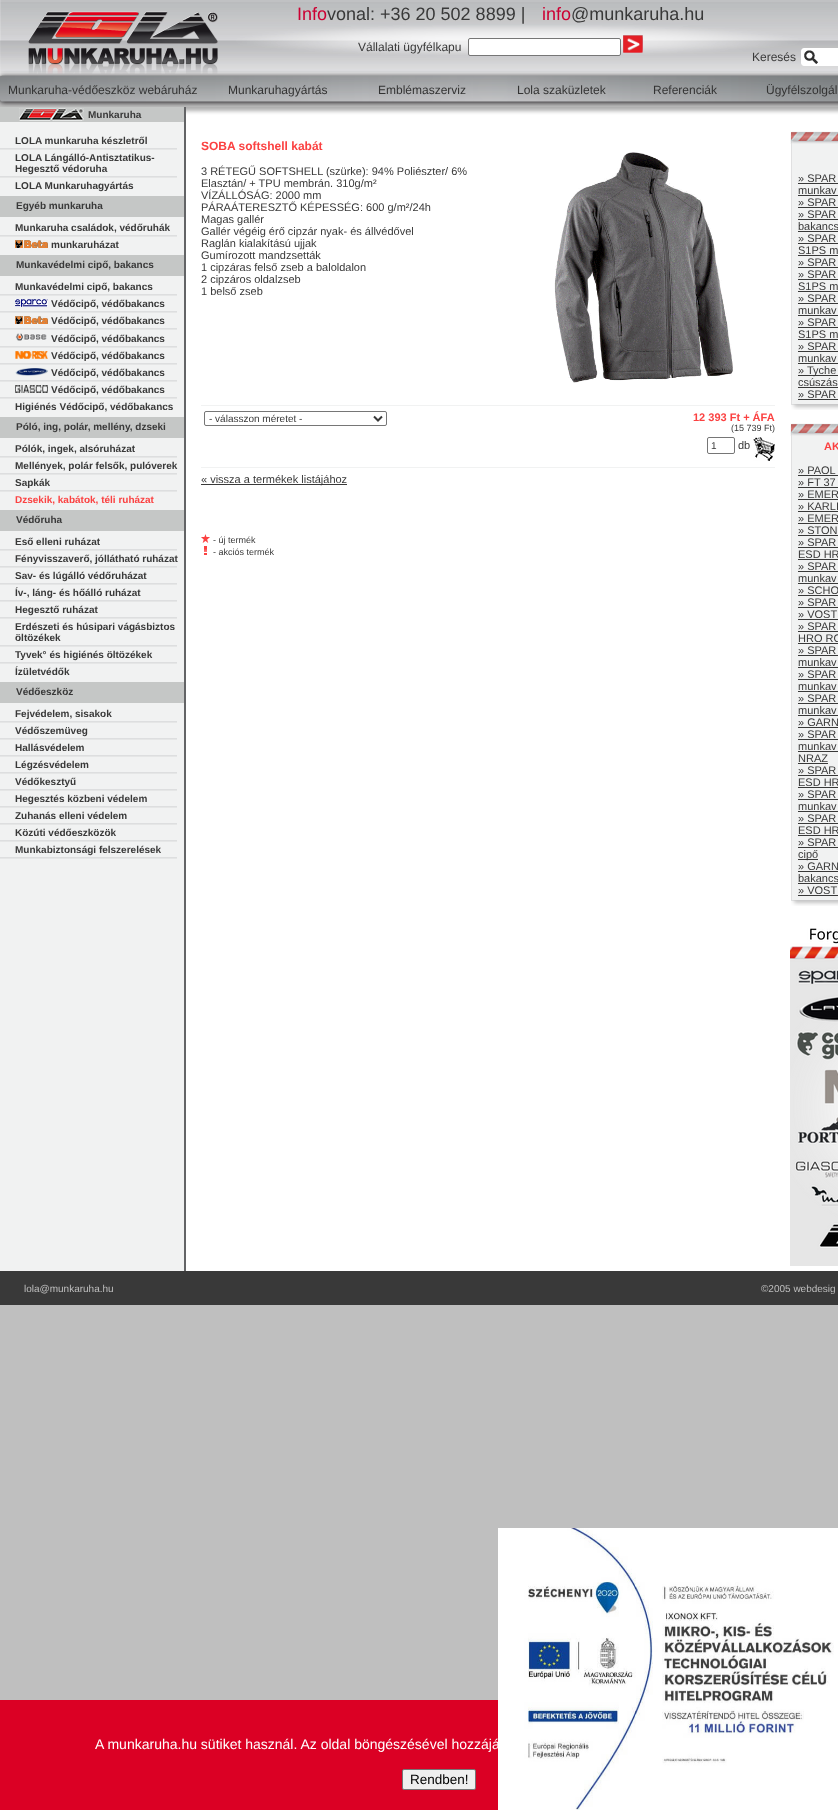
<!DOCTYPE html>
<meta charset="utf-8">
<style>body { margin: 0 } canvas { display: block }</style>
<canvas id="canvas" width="838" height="1810"></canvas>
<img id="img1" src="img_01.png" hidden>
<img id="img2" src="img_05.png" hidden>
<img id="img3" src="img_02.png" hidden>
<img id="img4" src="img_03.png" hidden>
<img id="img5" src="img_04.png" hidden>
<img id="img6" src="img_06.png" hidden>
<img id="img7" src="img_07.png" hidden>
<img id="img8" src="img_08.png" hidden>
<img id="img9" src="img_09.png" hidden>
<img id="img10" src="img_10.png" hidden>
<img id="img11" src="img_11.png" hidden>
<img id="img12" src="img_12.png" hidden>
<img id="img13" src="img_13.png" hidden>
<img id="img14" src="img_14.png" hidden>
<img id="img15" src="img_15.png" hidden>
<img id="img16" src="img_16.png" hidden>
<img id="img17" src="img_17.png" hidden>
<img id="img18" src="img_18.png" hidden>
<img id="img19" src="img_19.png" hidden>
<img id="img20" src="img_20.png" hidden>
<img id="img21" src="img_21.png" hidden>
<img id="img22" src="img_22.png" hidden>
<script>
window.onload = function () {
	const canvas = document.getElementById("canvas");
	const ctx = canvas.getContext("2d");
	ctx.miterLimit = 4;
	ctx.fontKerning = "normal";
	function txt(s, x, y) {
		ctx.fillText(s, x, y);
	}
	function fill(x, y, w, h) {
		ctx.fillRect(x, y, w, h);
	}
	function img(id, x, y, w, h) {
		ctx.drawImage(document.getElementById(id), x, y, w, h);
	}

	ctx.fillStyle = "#BFBFBF";
	fill(0, 0, 838, 1810);
	img("img1", 0, 0, 838, 72);
	img("img2", 0, 72, 838, 35);
	img("img3", 28, 11, 190, 63);
	ctx.fillStyle = "#FFFFFF";
	ctx.beginPath();
	ctx.roundRect(468.5, 38.5, 152, 17, 1.5);
	ctx.fill();
	ctx.strokeStyle = "#767676";
	ctx.stroke();
	img("img4", 623, 35, 20, 18);
	ctx.beginPath();
	ctx.moveTo(804, 48);
	ctx.lineTo(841, 48);
	ctx.lineTo(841, 66);
	ctx.lineTo(804, 66);
	ctx.bezierCurveTo(802.5, 66, 801, 64.5, 801, 63);
	ctx.lineTo(801, 51);
	ctx.bezierCurveTo(801, 49.5, 802.5, 48, 804, 48);
	ctx.closePath();
	ctx.fill();
	img("img5", 804, 50, 14, 14);
	ctx.fillStyle = "#F1F2F2";
	fill(0, 122, 184, 1149);
	ctx.fillStyle = "#C5C7C6";
	fill(0, 107, 184, 15);
	img("img6", 19, 108, 65, 13);
	img("img7", 0, 148, 177, 2);
	img("img7", 0, 176, 177, 2);
	fill(0, 196, 184, 21);
	img("img7", 0, 235, 177, 2);
	img("img8", 15, 240, 33, 8);
	fill(0, 255, 184, 21);
	img("img7", 0, 294, 177, 2);
	img("img9", 15, 299, 33, 8);
	img("img7", 0, 311, 177, 2);
	img("img8", 15, 316, 33, 8);
	img("img7", 0, 328, 177, 2);
	img("img10", 15, 333, 32, 8);
	img("img7", 0, 346, 177, 2);
	img("img11", 15, 351, 33, 8);
	img("img7", 0, 363, 177, 2);
	img("img12", 15, 368, 33, 8);
	img("img7", 0, 380, 177, 2);
	img("img13", 15, 385, 33, 8);
	img("img7", 0, 397, 177, 2);
	fill(0, 417, 184, 21);
	img("img7", 0, 456, 177, 2);
	img("img7", 0, 473, 177, 2);
	img("img7", 0, 490, 177, 2);
	fill(0, 510, 184, 21);
	img("img7", 0, 549, 177, 2);
	img("img7", 0, 566, 177, 2);
	img("img7", 0, 583, 177, 2);
	img("img7", 0, 600, 177, 2);
	img("img7", 0, 617, 177, 2);
	img("img7", 0, 645, 177, 2);
	img("img7", 0, 662, 177, 2);
	fill(0, 682, 184, 21);
	img("img7", 0, 721, 177, 2);
	img("img7", 0, 738, 177, 2);
	img("img7", 0, 755, 177, 2);
	img("img7", 0, 772, 177, 2);
	img("img7", 0, 789, 177, 2);
	img("img7", 0, 806, 177, 2);
	img("img7", 0, 823, 177, 2);
	img("img7", 0, 840, 177, 2);
	img("img7", 0, 857, 177, 2);
	ctx.fillStyle = "#636466";
	fill(184, 107, 2, 1164);
	img("img14", 186, 107, 652, 12);
	ctx.fillStyle = "#FFFFFF";
	fill(186, 119, 652, 1152);
	img("img15", 554, 152, 179, 231);
	ctx.fillStyle = "#F1F2F2";
	fill(201, 405, 574, 1);
	ctx.beginPath();
	ctx.roundRect(204.5, 411.5, 182, 14, 1.5);
	ctx.stroke();
	ctx.beginPath();
	ctx.moveTo(374, 416.5);
	ctx.lineTo(378, 420.5);
	ctx.lineTo(382, 416.5);
	ctx.strokeStyle = "#393939";
	ctx.lineWidth = 2;
	ctx.stroke();
	ctx.beginPath();
	ctx.roundRect(707.5, 437.5, 27, 16, 1.5);
	ctx.strokeStyle = "#767676";
	ctx.lineWidth = 1;
	ctx.stroke();
	img("img16", 753, 437, 22, 24);
	fill(201, 467, 574, 1);
	ctx.fillStyle = "#393939";
	fill(201, 484, 146, 1);
	img("img17", 201, 534, 9, 9);
	img("img18", 204, 546, 3, 9);
	img("img19", 790, 131, 48, 13);
	ctx.fillStyle = "#E0E0E1";
	fill(791, 144, 1, 260);
	ctx.fillStyle = "#F1F2F2";
	fill(792, 144, 46, 260);
	ctx.fillStyle = "#393939";
	fill(798, 183, 40, 1);
	fill(798, 195, 40, 1);
	fill(798, 207, 40, 1);
	fill(798, 219, 40, 1);
	fill(798, 231, 40, 1);
	fill(798, 243, 40, 1);
	fill(798, 255, 40, 1);
	fill(798, 267, 40, 1);
	fill(798, 279, 40, 1);
	fill(798, 291, 40, 1);
	fill(798, 303, 40, 1);
	fill(798, 315, 40, 1);
	fill(798, 327, 40, 1);
	fill(798, 339, 40, 1);
	fill(798, 351, 40, 1);
	fill(798, 363, 40, 1);
	fill(798, 375, 40, 1);
	fill(798, 387, 40, 1);
	fill(798, 399, 40, 1);
	img("img20", 791, 404, 47, 6);
	img("img19", 790, 423, 48, 13);
	ctx.fillStyle = "#E0E0E1";
	fill(791, 436, 1, 464);
	ctx.fillStyle = "#F1F2F2";
	fill(792, 436, 46, 464);
	ctx.fillStyle = "#393939";
	fill(798, 475, 40, 1);
	fill(798, 487, 40, 1);
	fill(798, 499, 40, 1);
	fill(798, 511, 40, 1);
	fill(798, 523, 40, 1);
	fill(798, 535, 40, 1);
	fill(798, 547, 40, 1);
	fill(798, 559, 40, 1);
	fill(798, 571, 40, 1);
	fill(798, 583, 40, 1);
	fill(798, 595, 40, 1);
	fill(798, 607, 40, 1);
	fill(798, 619, 40, 1);
	fill(798, 631, 40, 1);
	fill(798, 643, 40, 1);
	fill(798, 655, 40, 1);
	fill(798, 667, 40, 1);
	fill(798, 679, 40, 1);
	fill(798, 691, 40, 1);
	fill(798, 703, 40, 1);
	fill(798, 715, 40, 1);
	fill(798, 727, 40, 1);
	fill(798, 739, 40, 1);
	fill(798, 751, 40, 1);
	fill(798, 763, 30, 1);
	fill(798, 775, 40, 1);
	fill(798, 787, 40, 1);
	fill(798, 799, 40, 1);
	fill(798, 811, 40, 1);
	fill(798, 823, 40, 1);
	fill(798, 835, 40, 1);
	fill(798, 847, 40, 1);
	fill(798, 859, 20, 1);
	fill(798, 871, 40, 1);
	fill(798, 883, 40, 1);
	fill(798, 895, 40, 1);
	img("img20", 791, 900, 47, 6);
	img("img21", 790, 928, 48, 338);
	fill(0, 1271, 838, 34);
	ctx.fillStyle = "#DB0024";
	fill(0, 1700, 498, 110);
	ctx.fillStyle = "#EFEFEF";
	ctx.beginPath();
	ctx.roundRect(402.5, 1769.5, 73, 20, 1.5);
	ctx.fill();
	ctx.stroke();
	ctx.font = "18px Liberation Sans";
	ctx.fillStyle = "#CC0033";
	txt("Info", 297, 20);
	ctx.fillStyle = "#393939";
	txt("vonal: +36 20 502 8899 |", 327, 20);
	ctx.fillStyle = "#CC0033";
	txt("info", 542, 20);
	ctx.fillStyle = "#393939";
	txt("@munkaruha.hu", 571, 20);
	ctx.font = "12px Liberation Sans";
	txt("Vállalati ügyfélkapu", 358, 51);
	txt("Keresés", 752, 61);
	ctx.fillStyle = "#333333";
	txt("Munkaruha-védőeszköz webáruház", 8, 94);
	txt("Munkaruhagyártás", 228, 94);
	txt("Emblémaszerviz", 378, 94);
	txt("Lola szaküzletek", 517, 94);
	txt("Referenciák", 653, 94);
	txt("Ügyfélszolgál", 766, 94);
	ctx.font = "bold 10px Liberation Sans";
	ctx.fillStyle = "#393939";
	txt("Munkaruha", 88, 118);
	txt("LOLA munkaruha készletről", 15, 144);
	txt("LOLA Lángálló-Antisztatikus-", 15, 161);
	txt("Hegesztő védoruha", 15, 172);
	txt("LOLA Munkaruhagyártás", 15, 189);
	txt("Egyéb munkaruha", 16, 209);
	txt("Munkaruha családok, védőruhák", 15, 231);
	txt("munkaruházat", 51, 248);
	txt("Munkavédelmi cipő, bakancs", 16, 268);
	txt("Munkavédelmi cipő, bakancs", 15, 290);
	txt("Védőcipő, védőbakancs", 51, 307);
	txt("Védőcipő, védőbakancs", 51, 324);
	txt("Védőcipő, védőbakancs", 51, 342);
	txt("Védőcipő, védőbakancs", 51, 359);
	txt("Védőcipő, védőbakancs", 51, 376);
	txt("Védőcipő, védőbakancs", 51, 393);
	txt("Higiénés Védőcipő, védőbakancs", 15, 410);
	txt("Póló, ing, polár, mellény, dzseki", 16, 430);
	txt("Pólók, ingek, alsóruházat", 15, 452);
	txt("Mellények, polár felsők, pulóverek", 15, 469);
	txt("Sapkák", 15, 486);
	ctx.fillStyle = "#FB4141";
	txt("Dzsekik, kabátok, téli ruházat", 15, 503);
	ctx.fillStyle = "#393939";
	txt("Védőruha", 16, 523);
	txt("Eső elleni ruházat", 15, 545);
	txt("Fényvisszaverő, jóllátható ruházat", 15, 562);
	txt("Sav- és lúgálló védőruházat", 15, 579);
	txt("Ív-, láng- és hőálló ruházat", 15, 596);
	txt("Hegesztő ruházat", 15, 613);
	txt("Erdészeti és húsipari vágásbiztos", 15, 630);
	txt("öltözékek", 15, 641);
	txt("Tyvek° és higiénés öltözékek", 15, 658);
	txt("Ízületvédők", 15, 675);
	txt("Védőeszköz", 16, 695);
	txt("Fejvédelem, sisakok", 15, 717);
	txt("Védőszemüveg", 15, 734);
	txt("Hallásvédelem", 15, 751);
	txt("Légzésvédelem", 15, 768);
	txt("Védőkesztyű", 15, 785);
	txt("Hegesztés közbeni védelem", 15, 802);
	txt("Zuhanás elleni védelem", 15, 819);
	txt("Közúti védőeszközök", 15, 836);
	txt("Munkabiztonsági felszerelések", 15, 853);
	ctx.font = "bold 12px Liberation Sans";
	ctx.fillStyle = "#FB4141";
	txt("SOBA softshell kabát", 201, 150);
	ctx.font = "11px Liberation Sans";
	ctx.fillStyle = "#393939";
	txt("3 RÉTEGŰ SOFTSHELL (szürke): 94% Poliészter/ 6%", 201, 175);
	txt("Elasztán/ + TPU membrán. 310g/m²", 201, 187);
	txt("VÍZÁLLÓSÁG: 2000 mm", 201, 199);
	txt("PÁRAÁTERESZTŐ KÉPESSÉG: 600 g/m²/24h", 201, 211);
	txt("Magas gallér", 201, 223);
	txt("Gallér végéig érő cipzár nyak- és állvédővel", 201, 235);
	txt("Raglán kialakítású ujjak", 201, 247);
	txt("Gumírozott mandzsetták", 201, 259);
	txt("1 cipzáras felső zseb a baloldalon", 201, 271);
	txt("2 cipzáros oldalzseb", 201, 283);
	txt("1 belső zseb", 201, 295);
	ctx.font = "10px Liberation Sans";
	txt("- válasszon méretet -", 209, 422);
	ctx.font = "bold 11px Liberation Sans";
	ctx.fillStyle = "#FB4141";
	txt("12 393 Ft + ÁFA", 693, 421);
	ctx.font = "9px Liberation Sans";
	ctx.fillStyle = "#393939";
	txt("(15 739 Ft)", 731, 431);
	ctx.font = "10px Liberation Sans";
	txt("1", 711, 449);
	ctx.font = "11px Liberation Sans";
	txt("db", 738, 449);
	txt("« vissza a termékek listájához", 201, 483);
	ctx.font = "9px Liberation Sans";
	txt("- új termék", 213, 543);
	txt("- akciós termék", 213, 555);
	ctx.font = "11px Liberation Sans";
	txt("» SPAR", 798, 182);
	txt("munkav", 798, 194);
	txt("» SPAR", 798, 206);
	txt("» SPAR", 798, 218);
	txt("bakancs", 798, 230);
	txt("» SPAR", 798, 242);
	txt("S1PS m", 798, 254);
	txt("» SPAR", 798, 266);
	txt("» SPAR", 798, 278);
	txt("S1PS m", 798, 290);
	txt("» SPAR", 798, 302);
	txt("munkav", 798, 314);
	txt("» SPAR", 798, 326);
	txt("S1PS m", 798, 338);
	txt("» SPAR", 798, 350);
	txt("munkav", 798, 362);
	txt("» Tyche", 798, 374);
	txt("csúszás", 798, 386);
	txt("» SPAR", 798, 398);
	ctx.font = "bold 11px Liberation Sans";
	ctx.fillStyle = "#FB4141";
	txt("AK", 824, 450);
	ctx.font = "11px Liberation Sans";
	ctx.fillStyle = "#393939";
	txt("» PAOL", 798, 474);
	txt("» FT 37", 798, 486);
	txt("» EMER", 798, 498);
	txt("» KARLI", 798, 510);
	txt("» EMER", 798, 522);
	txt("» STON", 798, 534);
	txt("» SPAR", 798, 546);
	txt("ESD HR", 798, 558);
	txt("» SPAR", 798, 570);
	txt("munkav", 798, 582);
	txt("» SCHO", 798, 594);
	txt("» SPAR", 798, 606);
	txt("» VOST", 798, 618);
	txt("» SPAR", 798, 630);
	txt("HRO RO", 798, 642);
	txt("» SPAR", 798, 654);
	txt("munkav", 798, 666);
	txt("» SPAR", 798, 678);
	txt("munkav", 798, 690);
	txt("» SPAR", 798, 702);
	txt("munkav", 798, 714);
	txt("» GARN", 798, 726);
	txt("» SPAR", 798, 738);
	txt("munkav", 798, 750);
	txt("NRAZ", 798, 762);
	txt("» SPAR", 798, 774);
	txt("ESD HR", 798, 786);
	txt("» SPAR", 798, 798);
	txt("munkav", 798, 810);
	txt("» SPAR", 798, 822);
	txt("ESD HR", 798, 834);
	txt("» SPAR", 798, 846);
	txt("cipő", 798, 858);
	txt("» GARN", 798, 870);
	txt("bakancs", 798, 882);
	txt("» VOST", 798, 894);
	ctx.font = "10px Liberation Sans";
	ctx.fillStyle = "#BFBFBF";
	txt("lola@munkaruha.hu", 24, 1292);
	txt("©2005 webdesig", 761, 1292);
	ctx.font = "14px Liberation Sans";
	ctx.fillStyle = "#FFFFFF";
	txt("A munkaruha.hu sütiket használ. Az oldal böngészésével hozzájá", 95, 1749);
	ctx.font = "13.5px Liberation Sans";
	ctx.fillStyle = "#000000";
	txt("Rendben!", 410, 1784);
	img("img22", 498, 1528, 340, 282);
};
</script>
